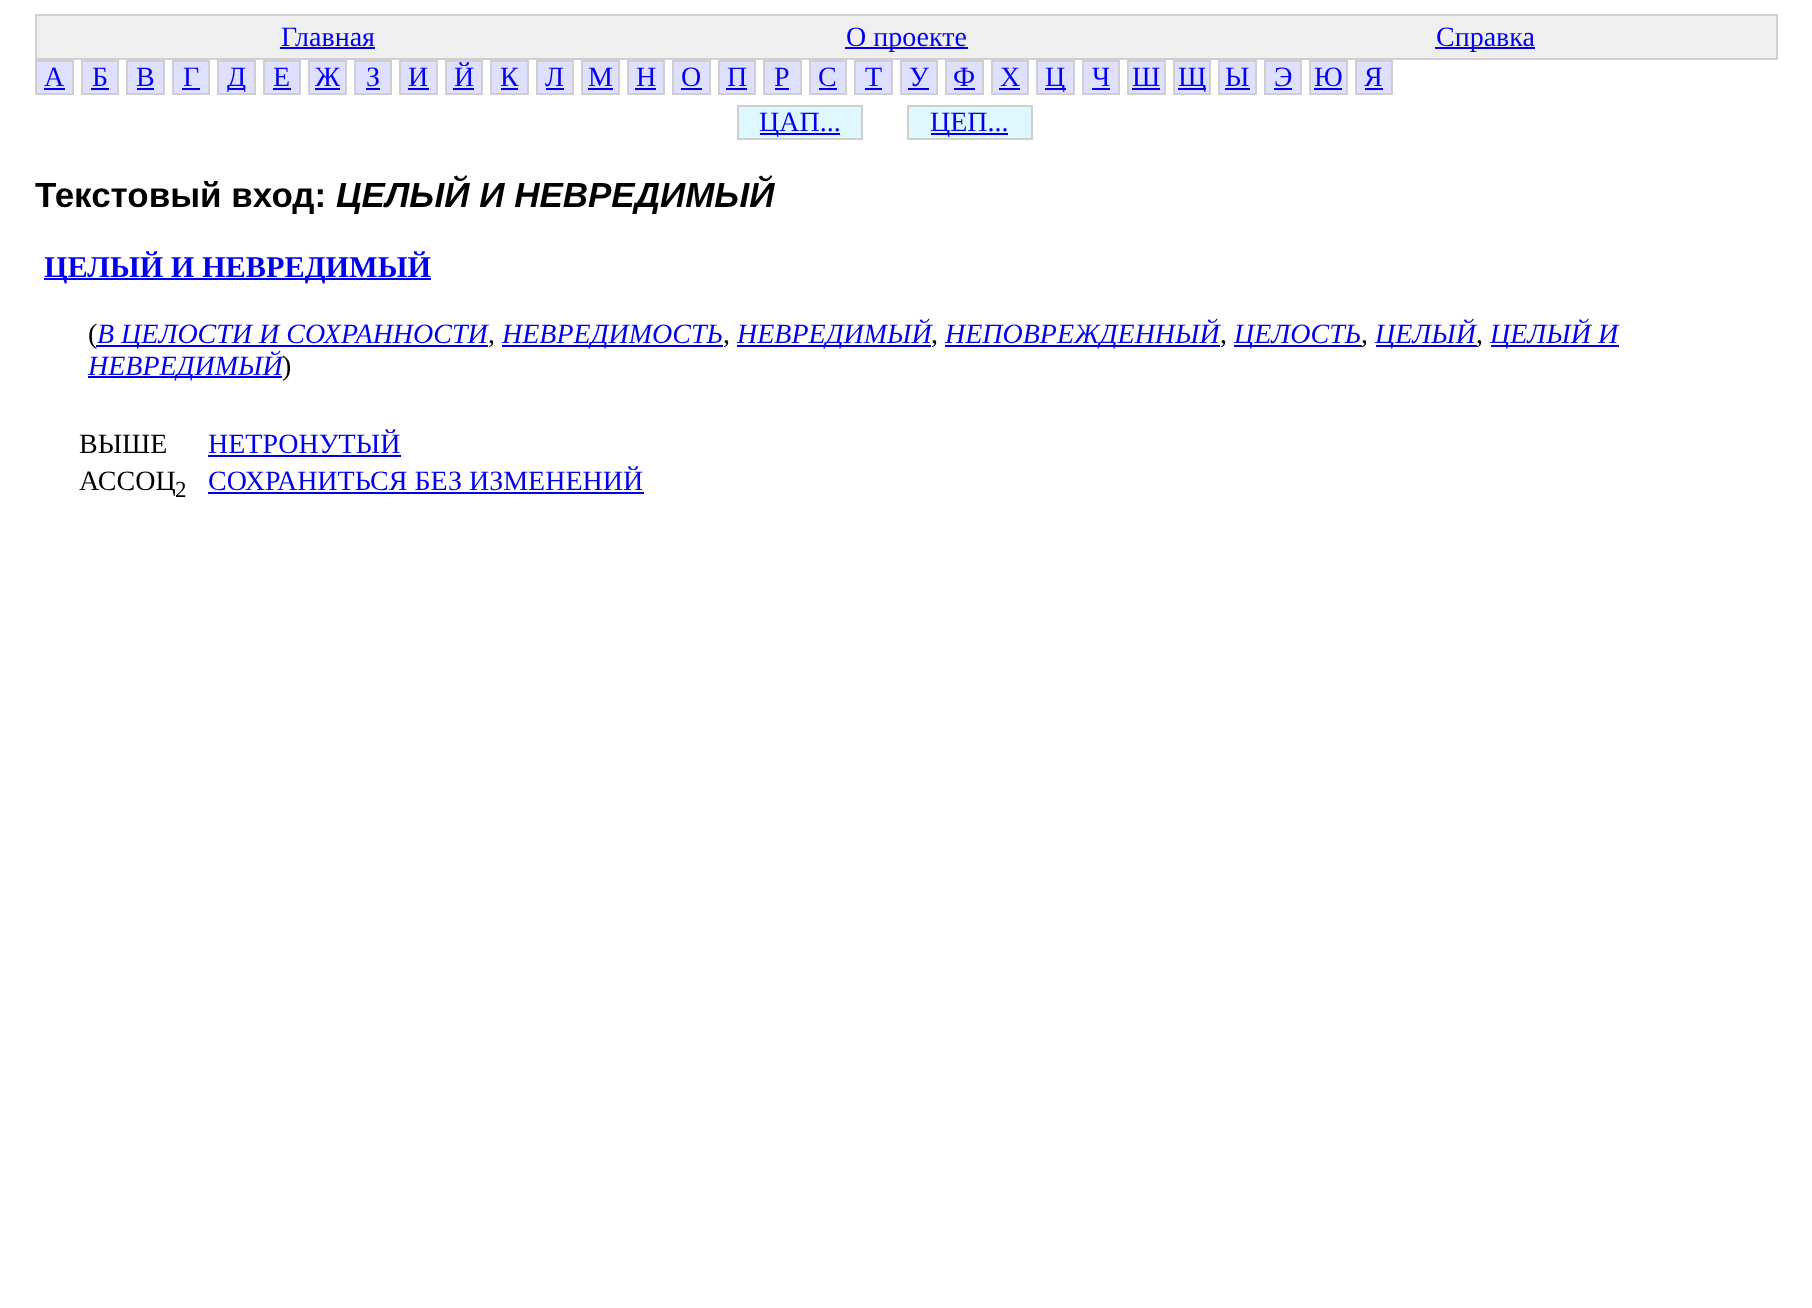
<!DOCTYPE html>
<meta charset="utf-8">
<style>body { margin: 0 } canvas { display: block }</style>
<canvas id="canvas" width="1812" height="1308"></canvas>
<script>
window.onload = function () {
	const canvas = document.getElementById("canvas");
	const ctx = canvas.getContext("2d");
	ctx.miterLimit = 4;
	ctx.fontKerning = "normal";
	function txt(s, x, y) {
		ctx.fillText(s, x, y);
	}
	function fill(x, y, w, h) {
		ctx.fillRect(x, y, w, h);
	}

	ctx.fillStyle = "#FFFFFF";
	fill(0, 0, 1812, 1308);
	ctx.fillStyle = "#EFEFEF";
	ctx.beginPath();
	ctx.rect(36, 15, 1741, 44);
	ctx.fill();
	ctx.strokeStyle = "#CFCFCF";
	ctx.lineWidth = 2;
	ctx.stroke();
	ctx.fillStyle = "#0000EE";
	fill(280, 47, 95, 2);
	fill(845, 47, 123, 2);
	fill(1435, 47, 100, 2);
	ctx.fillStyle = "#DFDFFF";
	ctx.beginPath();
	ctx.rect(36, 61, 37, 33);
	ctx.fill();
	ctx.stroke();
	ctx.fillStyle = "#0000EE";
	fill(44, 88, 21, 2);
	ctx.fillStyle = "#DFDFFF";
	ctx.beginPath();
	ctx.rect(82, 61, 36, 33);
	ctx.fill();
	ctx.stroke();
	ctx.fillStyle = "#0000EE";
	fill(91, 88, 18, 2);
	ctx.fillStyle = "#DFDFFF";
	ctx.beginPath();
	ctx.rect(127, 61, 37, 33);
	ctx.fill();
	ctx.stroke();
	ctx.fillStyle = "#0000EE";
	fill(137, 88, 17, 2);
	ctx.fillStyle = "#DFDFFF";
	ctx.beginPath();
	ctx.rect(173, 61, 36, 33);
	ctx.fill();
	ctx.stroke();
	ctx.fillStyle = "#0000EE";
	fill(182, 88, 18, 2);
	ctx.fillStyle = "#DFDFFF";
	ctx.beginPath();
	ctx.rect(218, 61, 37, 33);
	ctx.fill();
	ctx.stroke();
	ctx.fillStyle = "#0000EE";
	fill(228, 88, 17, 2);
	ctx.fillStyle = "#DFDFFF";
	ctx.beginPath();
	ctx.rect(264, 61, 36, 33);
	ctx.fill();
	ctx.stroke();
	ctx.fillStyle = "#0000EE";
	fill(273, 88, 18, 2);
	ctx.fillStyle = "#DFDFFF";
	ctx.beginPath();
	ctx.rect(309, 61, 37, 33);
	ctx.fill();
	ctx.stroke();
	ctx.fillStyle = "#0000EE";
	fill(315, 88, 25, 2);
	ctx.fillStyle = "#DFDFFF";
	ctx.beginPath();
	ctx.rect(355, 61, 36, 33);
	ctx.fill();
	ctx.stroke();
	ctx.fillStyle = "#0000EE";
	fill(366, 88, 14, 2);
	ctx.fillStyle = "#DFDFFF";
	ctx.beginPath();
	ctx.rect(400, 61, 37, 33);
	ctx.fill();
	ctx.stroke();
	ctx.fillStyle = "#0000EE";
	fill(408, 88, 21, 2);
	ctx.fillStyle = "#DFDFFF";
	ctx.beginPath();
	ctx.rect(446, 61, 36, 33);
	ctx.fill();
	ctx.stroke();
	ctx.fillStyle = "#0000EE";
	fill(453, 88, 21, 2);
	ctx.fillStyle = "#DFDFFF";
	ctx.beginPath();
	ctx.rect(491, 61, 37, 33);
	ctx.fill();
	ctx.stroke();
	ctx.fillStyle = "#0000EE";
	fill(501, 88, 17, 2);
	ctx.fillStyle = "#DFDFFF";
	ctx.beginPath();
	ctx.rect(537, 61, 36, 33);
	ctx.fill();
	ctx.stroke();
	ctx.fillStyle = "#0000EE";
	fill(546, 88, 18, 2);
	ctx.fillStyle = "#DFDFFF";
	ctx.beginPath();
	ctx.rect(582, 61, 37, 33);
	ctx.fill();
	ctx.stroke();
	ctx.fillStyle = "#0000EE";
	fill(588, 88, 25, 2);
	ctx.fillStyle = "#DFDFFF";
	ctx.beginPath();
	ctx.rect(628, 61, 36, 33);
	ctx.fill();
	ctx.stroke();
	ctx.fillStyle = "#0000EE";
	fill(635, 88, 21, 2);
	ctx.fillStyle = "#DFDFFF";
	ctx.beginPath();
	ctx.rect(673, 61, 37, 33);
	ctx.fill();
	ctx.stroke();
	ctx.fillStyle = "#0000EE";
	fill(681, 88, 21, 2);
	ctx.fillStyle = "#DFDFFF";
	ctx.beginPath();
	ctx.rect(719, 61, 36, 33);
	ctx.fill();
	ctx.stroke();
	ctx.fillStyle = "#0000EE";
	fill(726, 88, 21, 2);
	ctx.fillStyle = "#DFDFFF";
	ctx.beginPath();
	ctx.rect(764, 61, 37, 33);
	ctx.fill();
	ctx.stroke();
	ctx.fillStyle = "#0000EE";
	fill(775, 88, 14, 2);
	ctx.fillStyle = "#DFDFFF";
	ctx.beginPath();
	ctx.rect(810, 61, 36, 33);
	ctx.fill();
	ctx.stroke();
	ctx.fillStyle = "#0000EE";
	fill(819, 88, 18, 2);
	ctx.fillStyle = "#DFDFFF";
	ctx.beginPath();
	ctx.rect(855, 61, 37, 33);
	ctx.fill();
	ctx.stroke();
	ctx.fillStyle = "#0000EE";
	fill(865, 88, 17, 2);
	ctx.fillStyle = "#DFDFFF";
	ctx.beginPath();
	ctx.rect(901, 61, 36, 33);
	ctx.fill();
	ctx.stroke();
	ctx.fillStyle = "#0000EE";
	fill(908, 88, 21, 2);
	ctx.fillStyle = "#DFDFFF";
	ctx.beginPath();
	ctx.rect(946, 61, 37, 33);
	ctx.fill();
	ctx.stroke();
	ctx.fillStyle = "#0000EE";
	fill(954, 88, 21, 2);
	ctx.fillStyle = "#DFDFFF";
	ctx.beginPath();
	ctx.rect(992, 61, 36, 33);
	ctx.fill();
	ctx.stroke();
	ctx.fillStyle = "#0000EE";
	fill(999, 88, 21, 2);
	ctx.fillStyle = "#DFDFFF";
	ctx.beginPath();
	ctx.rect(1037, 61, 37, 33);
	ctx.fill();
	ctx.stroke();
	ctx.fillStyle = "#0000EE";
	fill(1045, 88, 21, 2);
	ctx.fillStyle = "#DFDFFF";
	ctx.beginPath();
	ctx.rect(1083, 61, 36, 33);
	ctx.fill();
	ctx.stroke();
	ctx.fillStyle = "#0000EE";
	fill(1092, 88, 18, 2);
	ctx.fillStyle = "#DFDFFF";
	ctx.beginPath();
	ctx.rect(1128, 61, 37, 33);
	ctx.fill();
	ctx.stroke();
	ctx.fillStyle = "#0000EE";
	fill(1132, 88, 28, 2);
	ctx.fillStyle = "#DFDFFF";
	ctx.beginPath();
	ctx.rect(1174, 61, 36, 33);
	ctx.fill();
	ctx.stroke();
	ctx.fillStyle = "#0000EE";
	fill(1178, 88, 28, 2);
	ctx.fillStyle = "#DFDFFF";
	ctx.beginPath();
	ctx.rect(1219, 61, 37, 33);
	ctx.fill();
	ctx.stroke();
	ctx.fillStyle = "#0000EE";
	fill(1225, 88, 25, 2);
	ctx.fillStyle = "#DFDFFF";
	ctx.beginPath();
	ctx.rect(1265, 61, 36, 33);
	ctx.fill();
	ctx.stroke();
	ctx.fillStyle = "#0000EE";
	fill(1274, 88, 18, 2);
	ctx.fillStyle = "#DFDFFF";
	ctx.beginPath();
	ctx.rect(1310, 61, 37, 33);
	ctx.fill();
	ctx.stroke();
	ctx.fillStyle = "#0000EE";
	fill(1314, 88, 28, 2);
	ctx.fillStyle = "#DFDFFF";
	ctx.beginPath();
	ctx.rect(1356, 61, 36, 33);
	ctx.fill();
	ctx.stroke();
	ctx.fillStyle = "#0000EE";
	fill(1365, 88, 18, 2);
	ctx.fillStyle = "#DFF7FF";
	ctx.beginPath();
	ctx.rect(738, 106, 124, 33);
	ctx.fill();
	ctx.stroke();
	ctx.fillStyle = "#0000EE";
	fill(760, 133, 80, 2);
	ctx.fillStyle = "#DFF7FF";
	ctx.beginPath();
	ctx.rect(908, 106, 124, 33);
	ctx.fill();
	ctx.stroke();
	ctx.fillStyle = "#0000EE";
	fill(931, 133, 77, 2);
	fill(44, 278, 387, 2);
	fill(96, 345, 392, 2);
	fill(502, 345, 221, 2);
	fill(737, 345, 194, 2);
	fill(945, 345, 275, 2);
	fill(1234, 345, 128, 2);
	fill(1376, 345, 101, 2);
	fill(1491, 345, 128, 2);
	fill(88, 376, 194, 2);
	fill(208, 455, 193, 2);
	fill(208, 492, 436, 2);
	ctx.font = "28px Liberation Serif";
	txt("Главная", 281, 46);
	txt("О проекте", 846, 46);
	txt("Справка", 1436, 46);
	txt("А", 44, 86);
	txt("Б", 92, 86);
	txt("В", 136, 86);
	txt("Г", 183, 86);
	txt("Д", 227, 86);
	txt("Е", 273, 86);
	txt("Ж", 315, 86);
	txt("З", 366, 86);
	txt("И", 408, 86);
	txt("Й", 454, 86);
	txt("К", 500, 86);
	txt("Л", 545, 86);
	txt("М", 588, 86);
	txt("Н", 636, 86);
	txt("О", 681, 86);
	txt("П", 727, 86);
	txt("Р", 774, 86);
	txt("С", 818, 86);
	txt("Т", 865, 86);
	txt("У", 909, 86);
	txt("Ф", 953, 86);
	txt("Х", 1000, 86);
	txt("Ц", 1045, 86);
	txt("Ч", 1092, 86);
	txt("Ш", 1132, 86);
	txt("Щ", 1178, 86);
	txt("Ы", 1225, 86);
	txt("Э", 1274, 86);
	txt("Ю", 1314, 86);
	txt("Я", 1364, 86);
	txt("ЦАП...", 759, 131);
	txt("ЦЕП...", 930, 131);
	ctx.font = "bold 35px Liberation Sans";
	ctx.fillStyle = "#000000";
	txt("Текстовый вход:", 35, 207);
	ctx.font = "italic bold 35px Liberation Sans";
	txt("ЦЕЛЫЙ И НЕВРЕДИМЫЙ", 336, 207);
	ctx.font = "bold 30.3px Liberation Serif";
	ctx.fillStyle = "#0000EE";
	txt("ЦЕЛЫЙ И НЕВРЕДИМЫЙ", 44, 277);
	ctx.font = "28px Liberation Serif";
	ctx.fillStyle = "#000000";
	txt("(", 88, 343);
	ctx.font = "italic 28px Liberation Serif";
	ctx.fillStyle = "#0000EE";
	txt("В ЦЕЛОСТИ И СОХРАННОСТИ", 97, 343);
	ctx.font = "28px Liberation Serif";
	ctx.fillStyle = "#000000";
	txt(",", 488, 343);
	ctx.font = "italic 28px Liberation Serif";
	ctx.fillStyle = "#0000EE";
	txt("НЕВРЕДИМОСТЬ", 502, 343);
	ctx.font = "28px Liberation Serif";
	ctx.fillStyle = "#000000";
	txt(",", 723, 343);
	ctx.font = "italic 28px Liberation Serif";
	ctx.fillStyle = "#0000EE";
	txt("НЕВРЕДИМЫЙ", 737, 343);
	ctx.font = "28px Liberation Serif";
	ctx.fillStyle = "#000000";
	txt(",", 931, 343);
	ctx.font = "italic 28px Liberation Serif";
	ctx.fillStyle = "#0000EE";
	txt("НЕПОВРЕЖДЕННЫЙ", 945, 343);
	ctx.font = "28px Liberation Serif";
	ctx.fillStyle = "#000000";
	txt(",", 1220, 343);
	ctx.font = "italic 28px Liberation Serif";
	ctx.fillStyle = "#0000EE";
	txt("ЦЕЛОСТЬ", 1234, 343);
	ctx.font = "28px Liberation Serif";
	ctx.fillStyle = "#000000";
	txt(",", 1361, 343);
	ctx.font = "italic 28px Liberation Serif";
	ctx.fillStyle = "#0000EE";
	txt("ЦЕЛЫЙ", 1375, 343);
	ctx.font = "28px Liberation Serif";
	ctx.fillStyle = "#000000";
	txt(",", 1476, 343);
	ctx.font = "italic 28px Liberation Serif";
	ctx.fillStyle = "#0000EE";
	txt("ЦЕЛЫЙ И", 1490, 343);
	txt("НЕВРЕДИМЫЙ", 88, 375);
	ctx.font = "28px Liberation Serif";
	ctx.fillStyle = "#000000";
	txt(")", 282, 375);
	txt("ВЫШЕ", 79, 453);
	ctx.fillStyle = "#0000EE";
	txt("НЕТРОНУТЫЙ", 208, 453);
	ctx.fillStyle = "#000000";
	txt("АССОЦ", 79, 490);
	ctx.font = "23px Liberation Serif";
	txt("2", 175, 497);
	ctx.font = "28px Liberation Serif";
	ctx.fillStyle = "#0000EE";
	txt("СОХРАНИТЬСЯ БЕЗ ИЗМЕНЕНИЙ", 208, 490);
};
</script>
